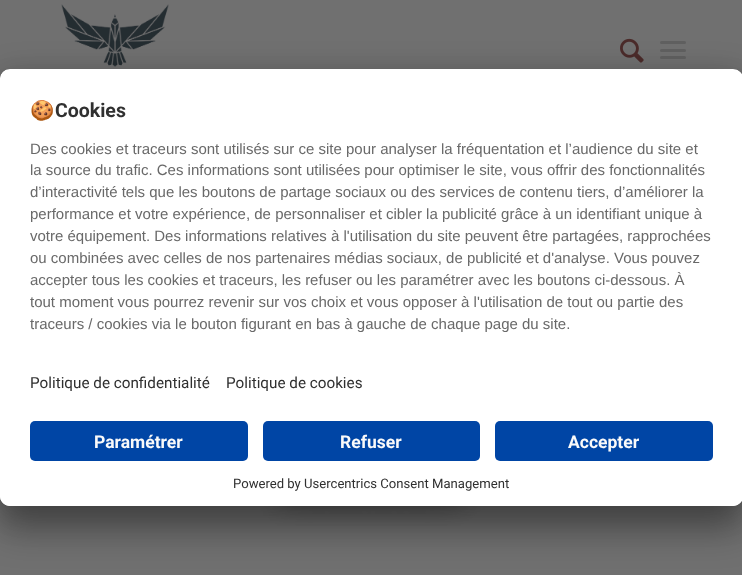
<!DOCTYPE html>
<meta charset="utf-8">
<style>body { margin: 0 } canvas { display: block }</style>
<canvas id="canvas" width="742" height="575"></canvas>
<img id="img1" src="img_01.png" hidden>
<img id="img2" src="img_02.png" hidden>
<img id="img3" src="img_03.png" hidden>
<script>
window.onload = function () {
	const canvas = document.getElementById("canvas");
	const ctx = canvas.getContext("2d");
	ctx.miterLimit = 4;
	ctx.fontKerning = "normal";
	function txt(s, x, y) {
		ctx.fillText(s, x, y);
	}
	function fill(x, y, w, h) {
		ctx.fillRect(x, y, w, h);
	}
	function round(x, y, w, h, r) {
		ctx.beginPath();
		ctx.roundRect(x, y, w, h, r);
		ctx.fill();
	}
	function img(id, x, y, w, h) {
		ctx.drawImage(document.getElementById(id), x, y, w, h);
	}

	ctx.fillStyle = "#707070";
	fill(0, 0, 742, 575);
	img("img1", 61, 4, 108, 63);
	img("img2", 620, 38, 24, 25);
	ctx.fillStyle = "#606060";
	round(660, 49, 26, 3, 1.5);
	round(660, 41, 26, 3, 1.5);
	round(660, 56, 26, 3, 1.5);
	img("img3", 255, 506, 232, 21);
	ctx.fillStyle = "rgba(0, 0, 0, 0.3)";
	ctx.filter = "blur(17.5px)";
	ctx.beginPath();
	ctx.roundRect(0, 94, 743, 437, 10);
	ctx.fill();
	ctx.filter = "none";
	ctx.fillStyle = "rgba(0, 0, 0, 0.22)";
	ctx.filter = "blur(16px)";
	ctx.beginPath();
	ctx.roundRect(0, 75, 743, 438, 10);
	ctx.fill();
	ctx.filter = "none";
	ctx.fillStyle = "#FFFFFF";
	round(0, 69, 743, 437, 10);
	ctx.save();
	ctx.beginPath();
	ctx.roundRect(0, 69, 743, 437, 10);
	ctx.clip();
	ctx.beginPath();
	ctx.moveTo(10, 69);
	ctx.lineTo(733, 69);
	ctx.bezierCurveTo(738.5, 69, 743, 73.5, 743, 79);
	ctx.lineTo(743, 411);
	ctx.lineTo(0, 411);
	ctx.lineTo(0, 79);
	ctx.bezierCurveTo(0, 73.5, 4.5, 69, 10, 69);
	ctx.closePath();
	ctx.clip();
	fill(0, 70, 742, 341);
	ctx.restore();
	ctx.beginPath();
	ctx.moveTo(0, 411);
	ctx.lineTo(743, 411);
	ctx.lineTo(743, 496);
	ctx.bezierCurveTo(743, 501.5, 738.5, 506, 733, 506);
	ctx.lineTo(10, 506);
	ctx.bezierCurveTo(4.5, 506, 0, 501.5, 0, 496);
	ctx.closePath();
	ctx.fill();
	ctx.fillStyle = "#0045A5";
	round(30, 421, 218, 40, 5);
	round(263, 421, 217, 40, 5);
	round(495, 421, 218, 40, 5);
	ctx.font = "bold 19.5px Noto Color Emoji";
	ctx.fillStyle = "#303030";
	txt("🍪", 30, 117);
	ctx.font = "bold 19.5px Roboto";
	txt("Cookies", 55, 117);
	ctx.font = "15px Liberation Sans";
	ctx.fillStyle = "#696969";
	txt("Des cookies et traceurs sont utilisés sur ce site pour analyser la fréquentation et l’audience du site et", 30, 154);
	txt("la source du trafic. Ces informations sont utilisées pour optimiser le site, vous offrir des fonctionnalités", 30, 175);
	txt("d’interactivité tels que les boutons de partage sociaux ou des services de contenu tiers, d’améliorer la", 30, 197);
	txt("performance et votre expérience, de personnaliser et cibler la publicité grâce à un identifiant unique à", 30, 219);
	txt("votre équipement. Des informations relatives à l'utilisation du site peuvent être partagées, rapprochées", 30, 241);
	txt("ou combinées avec celles de nos partenaires médias sociaux, de publicité et d'analyse. Vous pouvez", 30, 263);
	txt("accepter tous les cookies et traceurs, les refuser ou les paramétrer avec les boutons ci-dessous. À", 30, 285);
	txt("tout moment vous pourrez revenir sur vos choix et vous opposer à l'utilisation de tout ou partie des", 30, 307);
	txt("traceurs / cookies via le bouton figurant en bas à gauche de chaque page du site.", 30, 329);
	ctx.font = "15.25px Roboto";
	ctx.fillStyle = "#303030";
	txt("Politique de confidentialité", 30, 388);
	txt("Politique de cookies", 226, 388);
	ctx.font = "bold 17.5px Roboto";
	ctx.fillStyle = "#FAFAFA";
	txt("Paramétrer", 94, 448);
	txt("Refuser", 340, 448);
	txt("Accepter", 568, 448);
	ctx.font = "13.1px Roboto";
	ctx.fillStyle = "#303030";
	txt("Powered by Usercentrics Consent Management", 233, 488);
};
</script>
